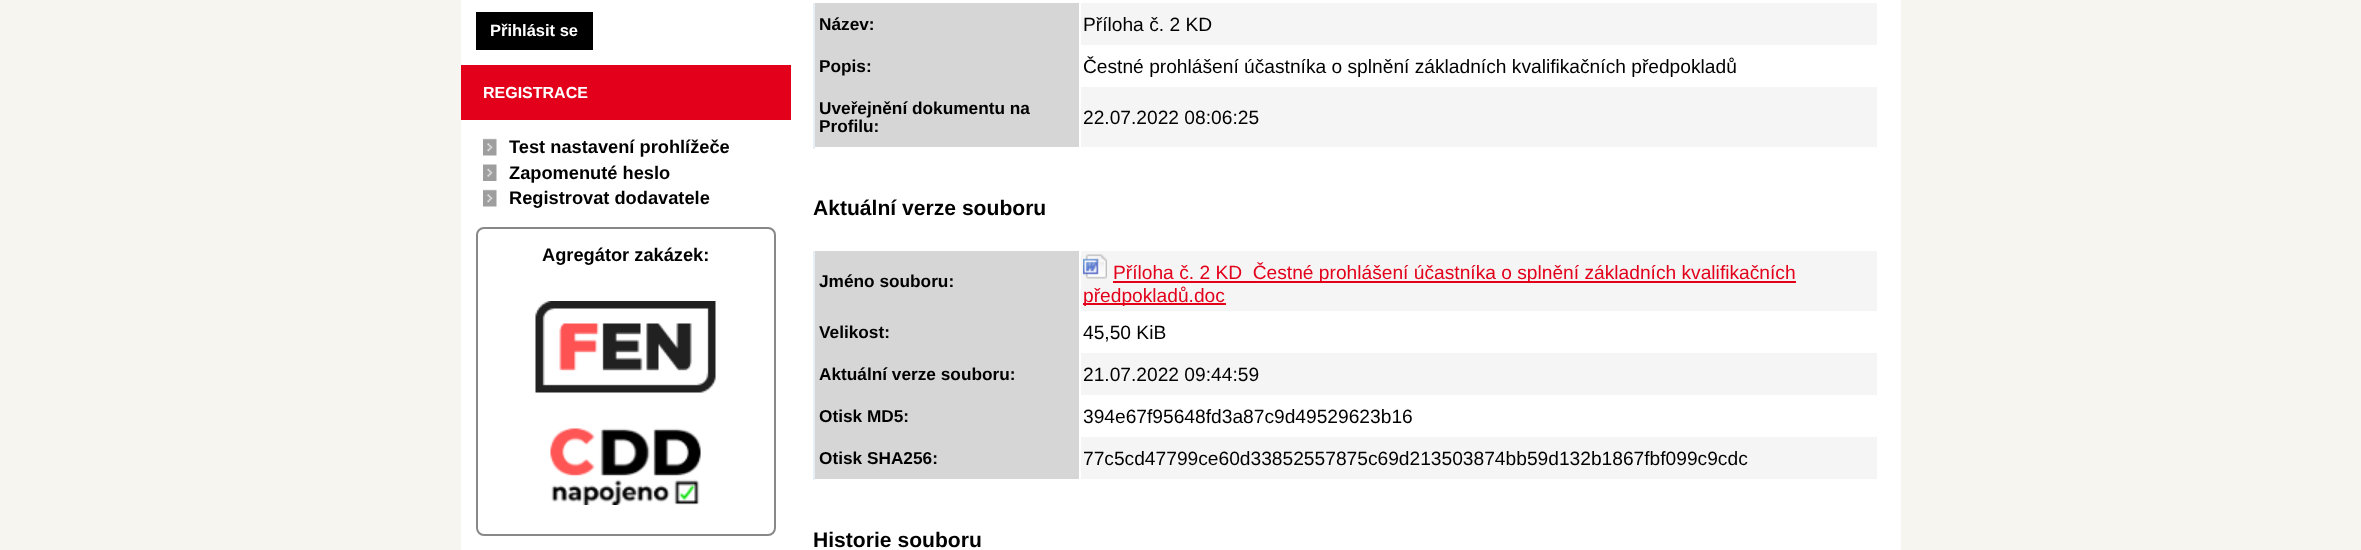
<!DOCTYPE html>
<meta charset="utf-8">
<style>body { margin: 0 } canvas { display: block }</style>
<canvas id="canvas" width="2361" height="550"></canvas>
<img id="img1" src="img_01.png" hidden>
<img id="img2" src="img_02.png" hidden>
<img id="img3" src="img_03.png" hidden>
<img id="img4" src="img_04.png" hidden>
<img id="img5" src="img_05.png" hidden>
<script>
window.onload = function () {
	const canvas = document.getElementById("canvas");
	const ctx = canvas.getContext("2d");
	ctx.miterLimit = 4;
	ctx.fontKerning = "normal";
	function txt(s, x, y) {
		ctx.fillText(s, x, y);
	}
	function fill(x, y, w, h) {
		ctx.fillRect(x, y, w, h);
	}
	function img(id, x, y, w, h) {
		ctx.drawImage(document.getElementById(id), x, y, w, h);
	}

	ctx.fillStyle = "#F7F5EF";
	fill(0, 0, 2361, 550);
	ctx.fillStyle = "#FFFFFF";
	fill(461, 0, 1440, 550);
	ctx.fillStyle = "#000000";
	fill(476, 12, 117, 38);
	ctx.fillStyle = "#E2001A";
	fill(461, 65, 330, 55);
	img("img1", 483, 138, 14, 18);
	img("img2", 483, 164, 14, 17);
	img("img1", 483, 189, 14, 18);
	ctx.beginPath();
	ctx.roundRect(477, 228, 298, 307, 7);
	ctx.strokeStyle = "#888888";
	ctx.lineWidth = 2;
	ctx.stroke();
	img("img3", 535, 301, 181, 92);
	img("img4", 550, 428, 151, 77);
	ctx.fillStyle = "#F5F5F5";
	fill(1081, 3, 796, 42);
	ctx.fillStyle = "#D6D6D6";
	fill(815, 3, 264, 144);
	ctx.fillStyle = "#F5F5F5";
	fill(1081, 87, 796, 60);
	ctx.fillStyle = "#E5EFF5";
	fill(813, 3, 2, 146);
	ctx.fillStyle = "#F5F5F5";
	fill(1081, 251, 796, 60);
	ctx.fillStyle = "#D6D6D6";
	fill(815, 251, 264, 228);
	img("img5", 1083, 254, 24, 25);
	ctx.fillStyle = "#E2001A";
	fill(1113, 281, 683, 2);
	fill(1083, 303, 143, 2);
	ctx.fillStyle = "#F5F5F5";
	fill(1081, 353, 796, 42);
	fill(1081, 437, 796, 42);
	ctx.fillStyle = "#E5EFF5";
	fill(813, 251, 2, 229);
	ctx.font = "bold 16.5px Liberation Sans";
	ctx.fillStyle = "#FFFFFF";
	txt("Přihlásit se", 490, 36);
	ctx.font = "bold 16px Liberation Sans";
	txt("REGISTRACE", 483, 98);
	ctx.font = "bold 18.25px Liberation Sans";
	ctx.fillStyle = "#000000";
	txt("Test nastavení prohlížeče", 509, 153);
	txt("Zapomenuté heslo", 509, 179);
	txt("Registrovat dodavatele", 509, 204);
	txt("Agregátor zakázek:", 542, 261);
	ctx.font = "bold 17.25px Liberation Sans";
	txt("Název:", 819, 30);
	ctx.font = "19.2px Liberation Sans";
	txt("Příloha č. 2 KD", 1083, 31);
	ctx.font = "bold 17.25px Liberation Sans";
	txt("Popis:", 819, 72);
	ctx.font = "19.2px Liberation Sans";
	txt("Čestné prohlášení účastníka o splnění základních kvalifikačních předpokladů", 1083, 73);
	ctx.font = "bold 17.25px Liberation Sans";
	txt("Uveřejnění dokumentu na", 819, 114);
	txt("Profilu:", 819, 132);
	ctx.font = "19.2px Liberation Sans";
	txt("22.07.2022 08:06:25", 1083, 124);
	ctx.font = "bold 21.1px Liberation Sans";
	txt("Aktuální verze souboru", 813, 215);
	ctx.font = "bold 17.25px Liberation Sans";
	txt("Jméno souboru:", 819, 287);
	ctx.font = "19.2px Liberation Sans";
	ctx.fillStyle = "#E2001A";
	txt("Příloha č. 2 KD_Čestné prohlášení účastníka o splnění základních kvalifikačních", 1113, 279);
	txt("předpokladů.doc", 1083, 302);
	ctx.font = "bold 17.25px Liberation Sans";
	ctx.fillStyle = "#000000";
	txt("Velikost:", 819, 338);
	ctx.font = "19.2px Liberation Sans";
	txt("45,50 KiB", 1083, 339);
	ctx.font = "bold 17.25px Liberation Sans";
	txt("Aktuální verze souboru:", 819, 380);
	ctx.font = "19.2px Liberation Sans";
	txt("21.07.2022 09:44:59", 1083, 381);
	ctx.font = "bold 17.25px Liberation Sans";
	txt("Otisk MD5:", 819, 422);
	ctx.font = "19.2px Liberation Sans";
	txt("394e67f95648fd3a87c9d49529623b16", 1083, 423);
	ctx.font = "bold 17.25px Liberation Sans";
	txt("Otisk SHA256:", 819, 464);
	ctx.font = "19.2px Liberation Sans";
	txt("77c5cd47799ce60d33852557875c69d213503874bb59d132b1867fbf099c9cdc", 1083, 465);
	ctx.font = "bold 21.1px Liberation Sans";
	txt("Historie souboru", 813, 547);
};
</script>
